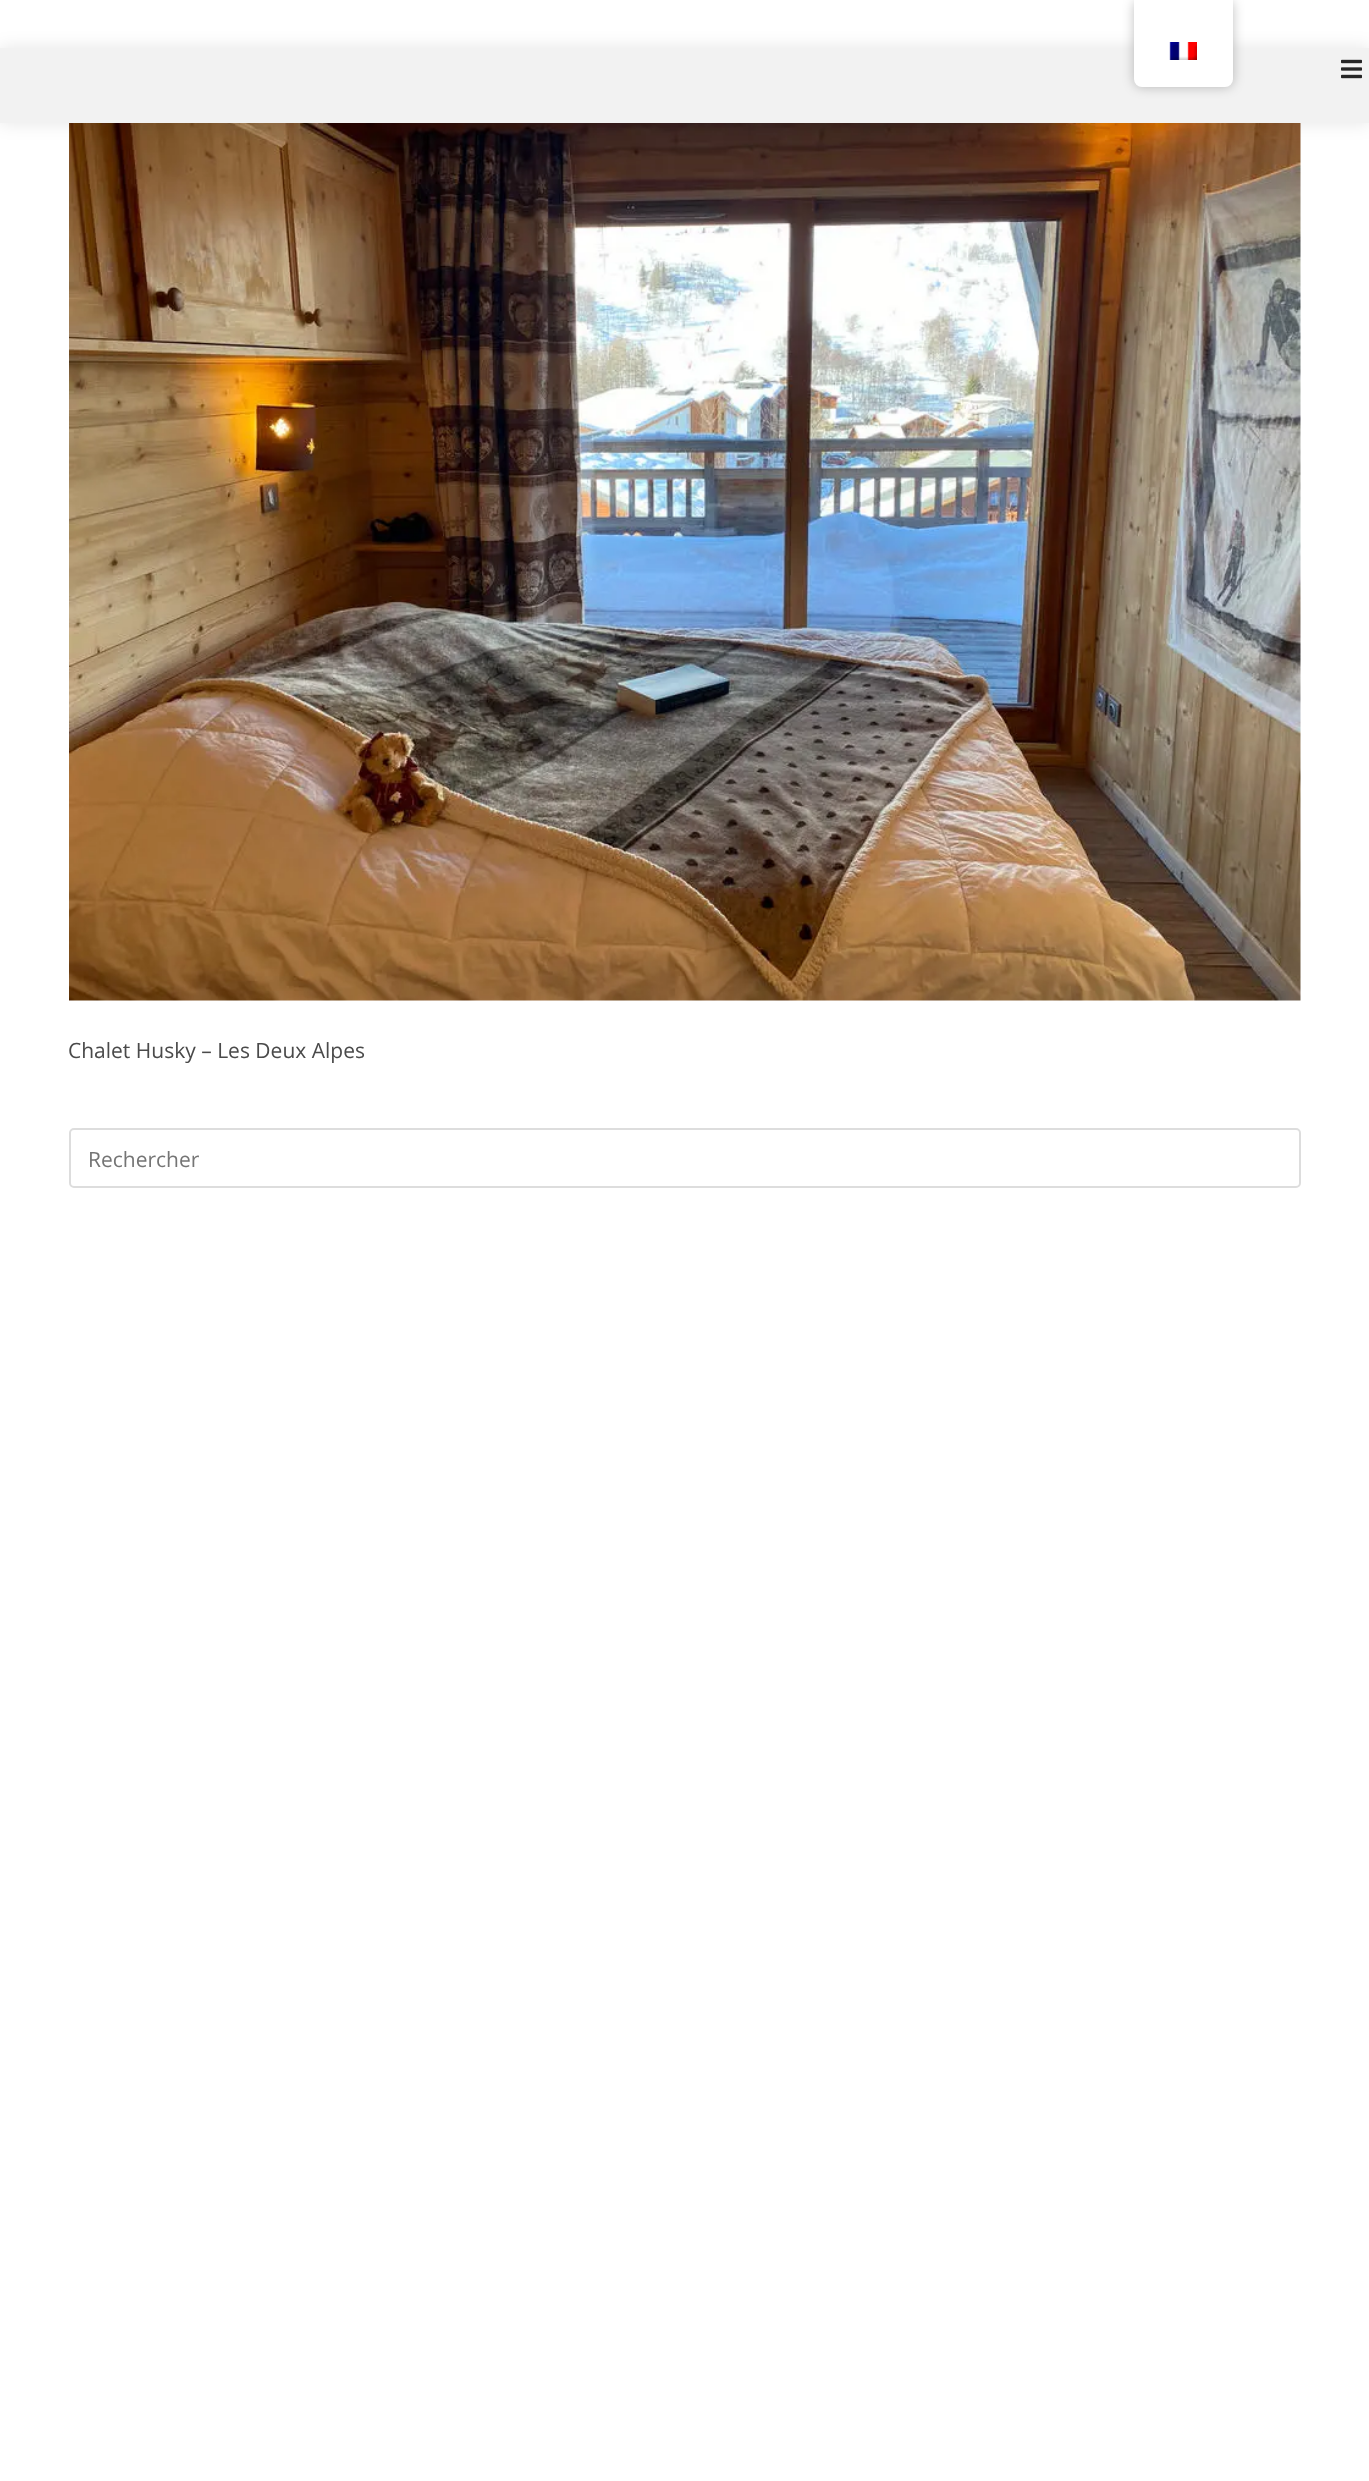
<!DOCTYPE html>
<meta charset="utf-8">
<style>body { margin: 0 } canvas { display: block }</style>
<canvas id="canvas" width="1369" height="2481"></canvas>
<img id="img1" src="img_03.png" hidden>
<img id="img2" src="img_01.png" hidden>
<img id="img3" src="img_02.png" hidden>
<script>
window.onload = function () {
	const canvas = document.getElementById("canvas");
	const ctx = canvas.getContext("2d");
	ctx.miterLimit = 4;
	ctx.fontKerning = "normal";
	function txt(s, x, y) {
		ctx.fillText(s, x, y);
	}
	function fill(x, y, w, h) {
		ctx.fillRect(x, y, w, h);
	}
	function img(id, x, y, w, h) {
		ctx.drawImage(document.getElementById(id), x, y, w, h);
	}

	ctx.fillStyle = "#FFFFFF";
	fill(0, 0, 1369, 2481);
	img("img1", 69, 123, 1232, 878);
	ctx.fillStyle = "rgba(0, 0, 0, 0.1)";
	ctx.filter = "blur(9px)";
	ctx.beginPath();
	ctx.rect(0, 48, 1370, 75);
	ctx.fill();
	ctx.filter = "none";
	ctx.fillStyle = "#F2F2F2";
	fill(0, 48, 1369, 75);
	ctx.fillStyle = "rgba(0, 0, 0, 0.25)";
	ctx.filter = "blur(6px)";
	ctx.beginPath();
	ctx.roundRect(1134, 0, 99, 87, 8);
	ctx.fill();
	ctx.filter = "none";
	ctx.fillStyle = "#FFFFFF";
	ctx.beginPath();
	ctx.roundRect(1134, 0, 99, 87, [0, 0, 8, 8]);
	ctx.fill();
	img("img2", 1169, 42, 28, 18);
	img("img3", 1341, 59, 21, 20);
	ctx.beginPath();
	ctx.roundRect(70, 1129, 1230, 58, 4);
	ctx.strokeStyle = "#DDDDDD";
	ctx.lineWidth = 2;
	ctx.stroke();
	ctx.font = "21px Open Sans";
	ctx.fillStyle = "#4A4A4A";
	txt("Chalet Husky – Les Deux Alpes", 68, 1058);
	ctx.fillStyle = "#757575";
	txt("Rechercher", 88, 1167);
};
</script>
